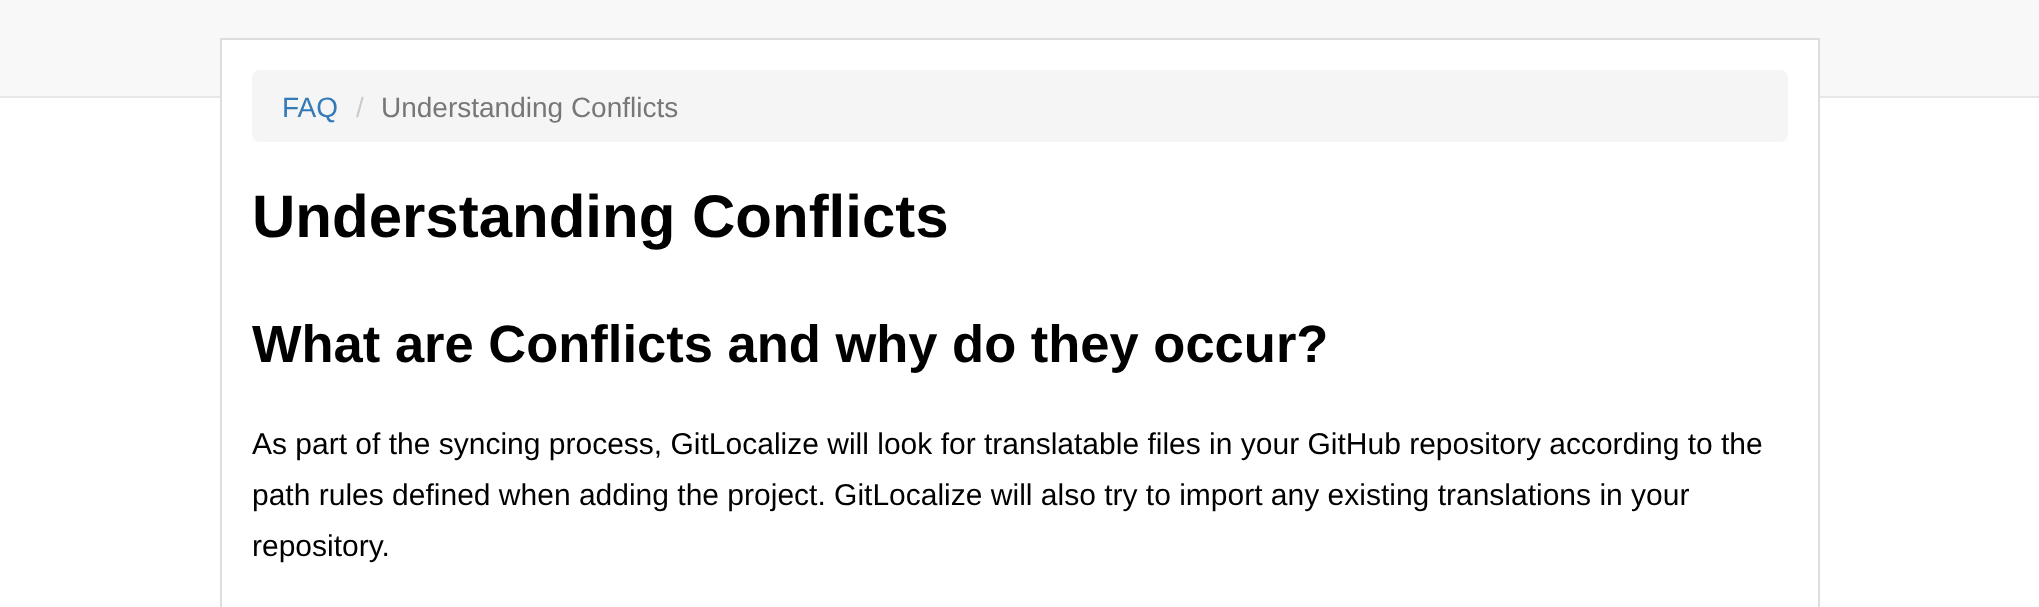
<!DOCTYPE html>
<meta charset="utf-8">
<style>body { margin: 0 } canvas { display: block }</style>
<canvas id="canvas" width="2039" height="607"></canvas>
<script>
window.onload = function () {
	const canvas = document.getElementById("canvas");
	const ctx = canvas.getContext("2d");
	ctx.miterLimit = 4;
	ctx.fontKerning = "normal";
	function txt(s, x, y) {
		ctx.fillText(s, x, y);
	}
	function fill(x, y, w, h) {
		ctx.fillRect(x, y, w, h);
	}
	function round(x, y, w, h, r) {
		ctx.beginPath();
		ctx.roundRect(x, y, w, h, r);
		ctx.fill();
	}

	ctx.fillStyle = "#FFFFFF";
	fill(0, 0, 2039, 607);
	ctx.fillStyle = "#F8F8F8";
	fill(0, 0, 2039, 96);
	ctx.fillStyle = "#E7E7E7";
	fill(0, 96, 2039, 2);
	ctx.fillStyle = "#FFFFFF";
	fill(222, 40, 1596, 58);
	ctx.strokeStyle = "#DDDDDD";
	ctx.lineWidth = 2;
	ctx.strokeRect(221, 39, 1598, 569);
	ctx.fillStyle = "#F5F5F5";
	round(252, 70, 1536, 72, 8);
	ctx.font = "28px Liberation Sans";
	ctx.fillStyle = "#337AB7";
	txt("FAQ", 282, 117);
	ctx.fillStyle = "#CCCCCC";
	txt("/", 356, 117);
	ctx.fillStyle = "#777777";
	txt("Understanding Conflicts", 381, 117);
	ctx.font = "bold 60px Liberation Sans";
	ctx.fillStyle = "#000000";
	txt("Understanding Conflicts", 252, 237);
	ctx.font = "bold 52.5px Liberation Sans";
	txt("What are Conflicts and why do they occur?", 252, 362);
	ctx.font = "30px Liberation Sans";
	txt("As part of the syncing process, GitLocalize will look for translatable files in your GitHub repository according to the", 252, 454);
	txt("path rules defined when adding the project. GitLocalize will also try to import any existing translations in your", 252, 505);
	txt("repository.", 252, 556);
};
</script>
